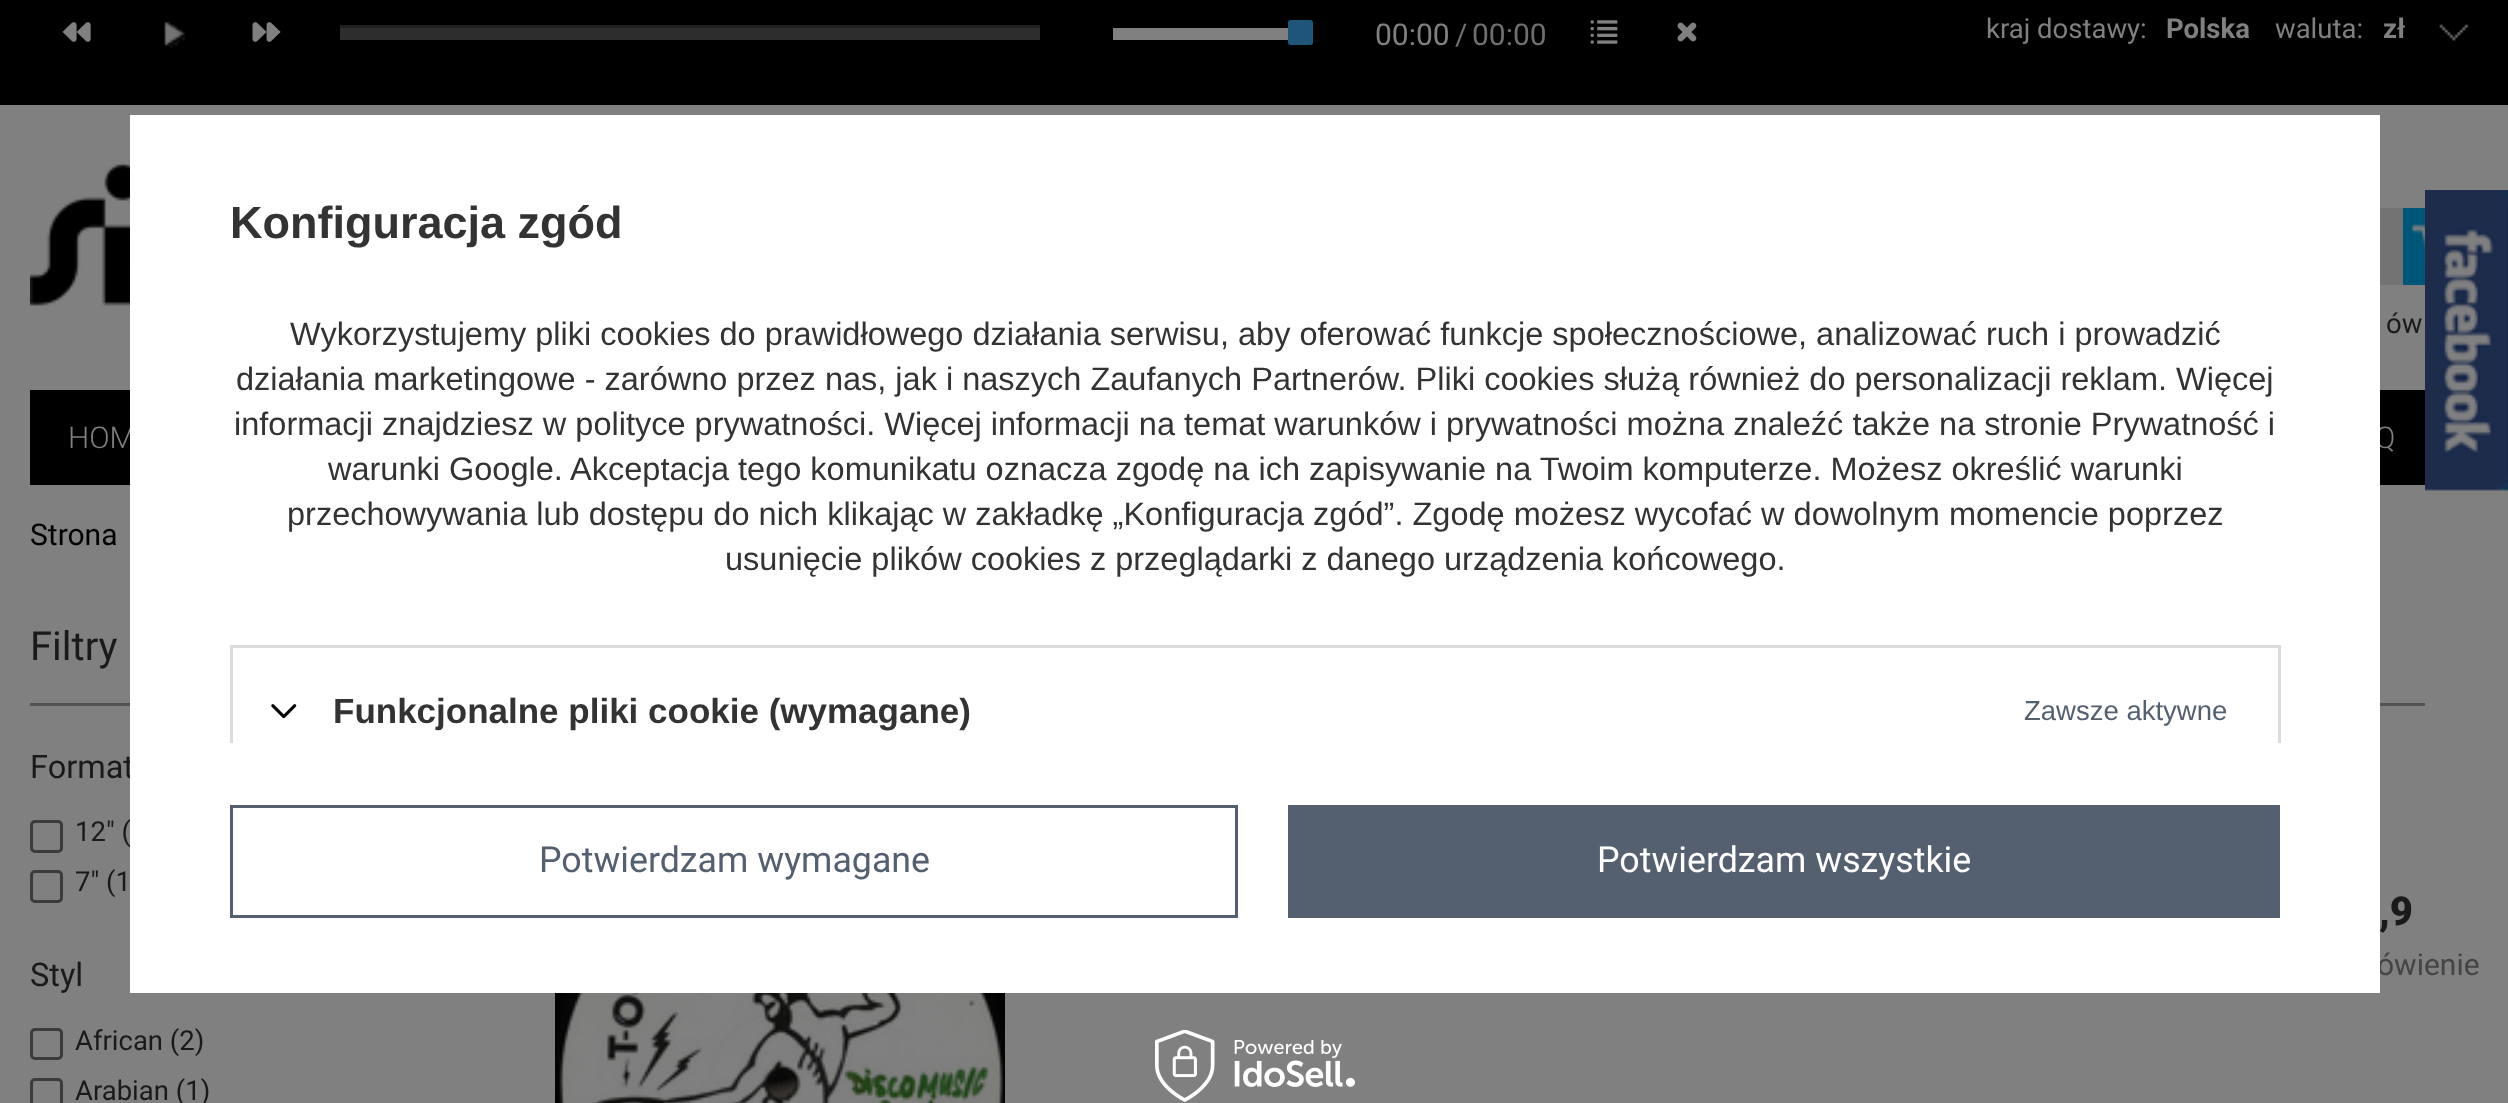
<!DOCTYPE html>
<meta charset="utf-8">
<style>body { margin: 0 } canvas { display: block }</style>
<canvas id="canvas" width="2508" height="1103"></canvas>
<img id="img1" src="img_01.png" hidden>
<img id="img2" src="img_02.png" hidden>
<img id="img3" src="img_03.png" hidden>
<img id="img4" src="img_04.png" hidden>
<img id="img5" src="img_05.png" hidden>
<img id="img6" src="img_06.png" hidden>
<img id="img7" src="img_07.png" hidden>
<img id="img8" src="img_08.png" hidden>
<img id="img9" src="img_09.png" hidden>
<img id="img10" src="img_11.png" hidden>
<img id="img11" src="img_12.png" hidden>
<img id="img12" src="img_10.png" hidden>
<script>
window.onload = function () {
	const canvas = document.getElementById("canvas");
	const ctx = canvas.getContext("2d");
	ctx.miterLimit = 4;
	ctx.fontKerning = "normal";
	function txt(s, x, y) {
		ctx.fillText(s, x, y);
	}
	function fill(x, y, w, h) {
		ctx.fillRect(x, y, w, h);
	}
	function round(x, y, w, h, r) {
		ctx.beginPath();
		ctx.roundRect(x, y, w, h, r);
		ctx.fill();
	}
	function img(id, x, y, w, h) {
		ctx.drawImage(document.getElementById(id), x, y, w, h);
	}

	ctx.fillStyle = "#808080";
	fill(0, 0, 2508, 1103);
	ctx.fillStyle = "#000000";
	fill(0, 0, 2508, 105);
	img("img1", 62, 22, 29, 20);
	img("img2", 164, 21, 22, 27);
	img("img3", 252, 22, 29, 20);
	ctx.fillStyle = "#2D2D2D";
	fill(340, 28, 700, 12);
	ctx.fillStyle = "#202020";
	fill(340, 25, 700, 3);
	ctx.fillStyle = "#808080";
	fill(1113, 28, 175, 12);
	ctx.fillStyle = "#1E567A";
	round(1288, 20, 25, 25, 2.5);
	img("img4", 1590, 20, 28, 24);
	img("img5", 1677, 22, 20, 20);
	img("img6", 2439, 24, 30, 17);
	img("img7", 30, 154, 100, 152);
	ctx.fillStyle = "#737373";
	fill(2380, 208, 23, 77);
	ctx.fillStyle = "#005679";
	fill(2403, 208, 22, 77);
	img("img8", 2411, 224, 14, 40);
	ctx.fillStyle = "#000000";
	fill(30, 390, 2395, 95);
	ctx.fillStyle = "#535353";
	fill(30, 703, 100, 3);
	ctx.beginPath();
	ctx.roundRect(31.5, 821.5, 30, 30, 3.5);
	ctx.strokeStyle = "#3B3B3B";
	ctx.lineWidth = 3;
	ctx.stroke();
	ctx.beginPath();
	ctx.roundRect(31.5, 871.5, 30, 30, 3.5);
	ctx.stroke();
	ctx.beginPath();
	ctx.roundRect(31.5, 1029.5, 30, 29, 3.5);
	ctx.stroke();
	ctx.beginPath();
	ctx.roundRect(31.5, 1079.5, 30, 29, 3.5);
	ctx.stroke();
	fill(2380, 703, 45, 3);
	img("img9", 555, 993, 450, 110);
	img("img10", 1155, 1030, 200, 72);
	img("img11", 2425, 190, 83, 725);
	ctx.font = "30px Roboto";
	ctx.fillStyle = "#808080";
	txt("00:00", 1375, 45);
	ctx.fillStyle = "#6F6F6F";
	txt("/", 1455, 45);
	txt("00:00", 1472, 45);
	ctx.font = "27.5px Roboto";
	ctx.fillStyle = "#808080";
	txt("kraj dostawy:", 1986, 38);
	ctx.font = "bold 27.5px Roboto";
	txt("Polska", 2166, 38);
	ctx.font = "27.5px Roboto";
	txt("waluta:", 2275, 38);
	ctx.font = "bold 27.5px Roboto";
	txt("zł", 2383, 38);
	ctx.font = "27.5px Roboto";
	ctx.fillStyle = "#1A1A1A";
	txt("ów", 2386, 333);
	ctx.font = "300 30px Roboto";
	ctx.fillStyle = "#808080";
	txt("HOM", 68, 448);
	txt("Q", 2375, 448);
	ctx.font = "30px Roboto";
	ctx.fillStyle = "#000000";
	txt("Strona", 30, 545);
	ctx.font = "40px Roboto";
	ctx.fillStyle = "#1A1A1A";
	txt("Filtry", 30, 660);
	ctx.font = "32.5px Roboto";
	txt("Format", 30, 778);
	ctx.font = "27.5px Roboto";
	txt("12\" (", 75, 841);
	txt("7\" (1", 75, 891);
	ctx.font = "32.5px Roboto";
	txt("Styl", 30, 986);
	ctx.font = "27.5px Roboto";
	txt("African (2)", 75, 1050);
	txt("Arabian (1)", 75, 1100);
	ctx.font = "900 40px Roboto";
	txt(",9", 2379, 925);
	ctx.font = "30px Roboto";
	ctx.fillStyle = "#444444";
	txt("ówienie", 2377, 975);
	ctx.fillStyle = "#FFFFFF";
	fill(130, 115, 2250, 878);
	ctx.font = "bold 45px Liberation Sans";
	ctx.fillStyle = "#333333";
	txt("Konfiguracja zgód", 230, 238);
	ctx.font = "32.5px Liberation Sans";
	txt("Wykorzystujemy pliki cookies do prawidłowego działania serwisu, aby oferować funkcje społecznościowe, analizować ruch i prowadzić", 290, 345);
	txt("działania marketingowe - zarówno przez nas, jak i naszych Zaufanych Partnerów. Pliki cookies służą również do personalizacji reklam. Więcej", 236, 390);
	txt("informacji znajdziesz w polityce prywatności. Więcej informacji na temat warunków i prywatności można znaleźć także na stronie Prywatność i", 234, 435);
	txt("warunki Google. Akceptacja tego komunikatu oznacza zgodę na ich zapisywanie na Twoim komputerze. Możesz określić warunki", 328, 480);
	txt("przechowywania lub dostępu do nich klikając w zakładkę „Konfiguracja zgód”. Zgodę możesz wycofać w dowolnym momencie poprzez", 287, 525);
	txt("usunięcie plików cookies z przeglądarki z danego urządzenia końcowego.", 725, 570);
	ctx.fillStyle = "#DBDBDB";
	fill(230, 645, 2050, 3);
	fill(2278, 645, 3, 98);
	fill(230, 645, 3, 98);
	img("img12", 271, 704, 26, 15);
	ctx.font = "bold 35px Liberation Sans";
	ctx.fillStyle = "#333333";
	txt("Funkcjonalne pliki cookie (wymagane)", 333, 723);
	ctx.font = "27.5px Liberation Sans";
	ctx.fillStyle = "#546070";
	txt("Zawsze aktywne", 2024, 720);
	ctx.strokeStyle = "#546070";
	ctx.strokeRect(231.5, 806.5, 1005, 110);
	ctx.font = "35.75px Roboto";
	txt("Potwierdzam wymagane", 539, 872);
	fill(1288, 805, 992, 113);
	ctx.fillStyle = "#FFFFFF";
	txt("Potwierdzam wszystkie", 1597, 872);
};
</script>
